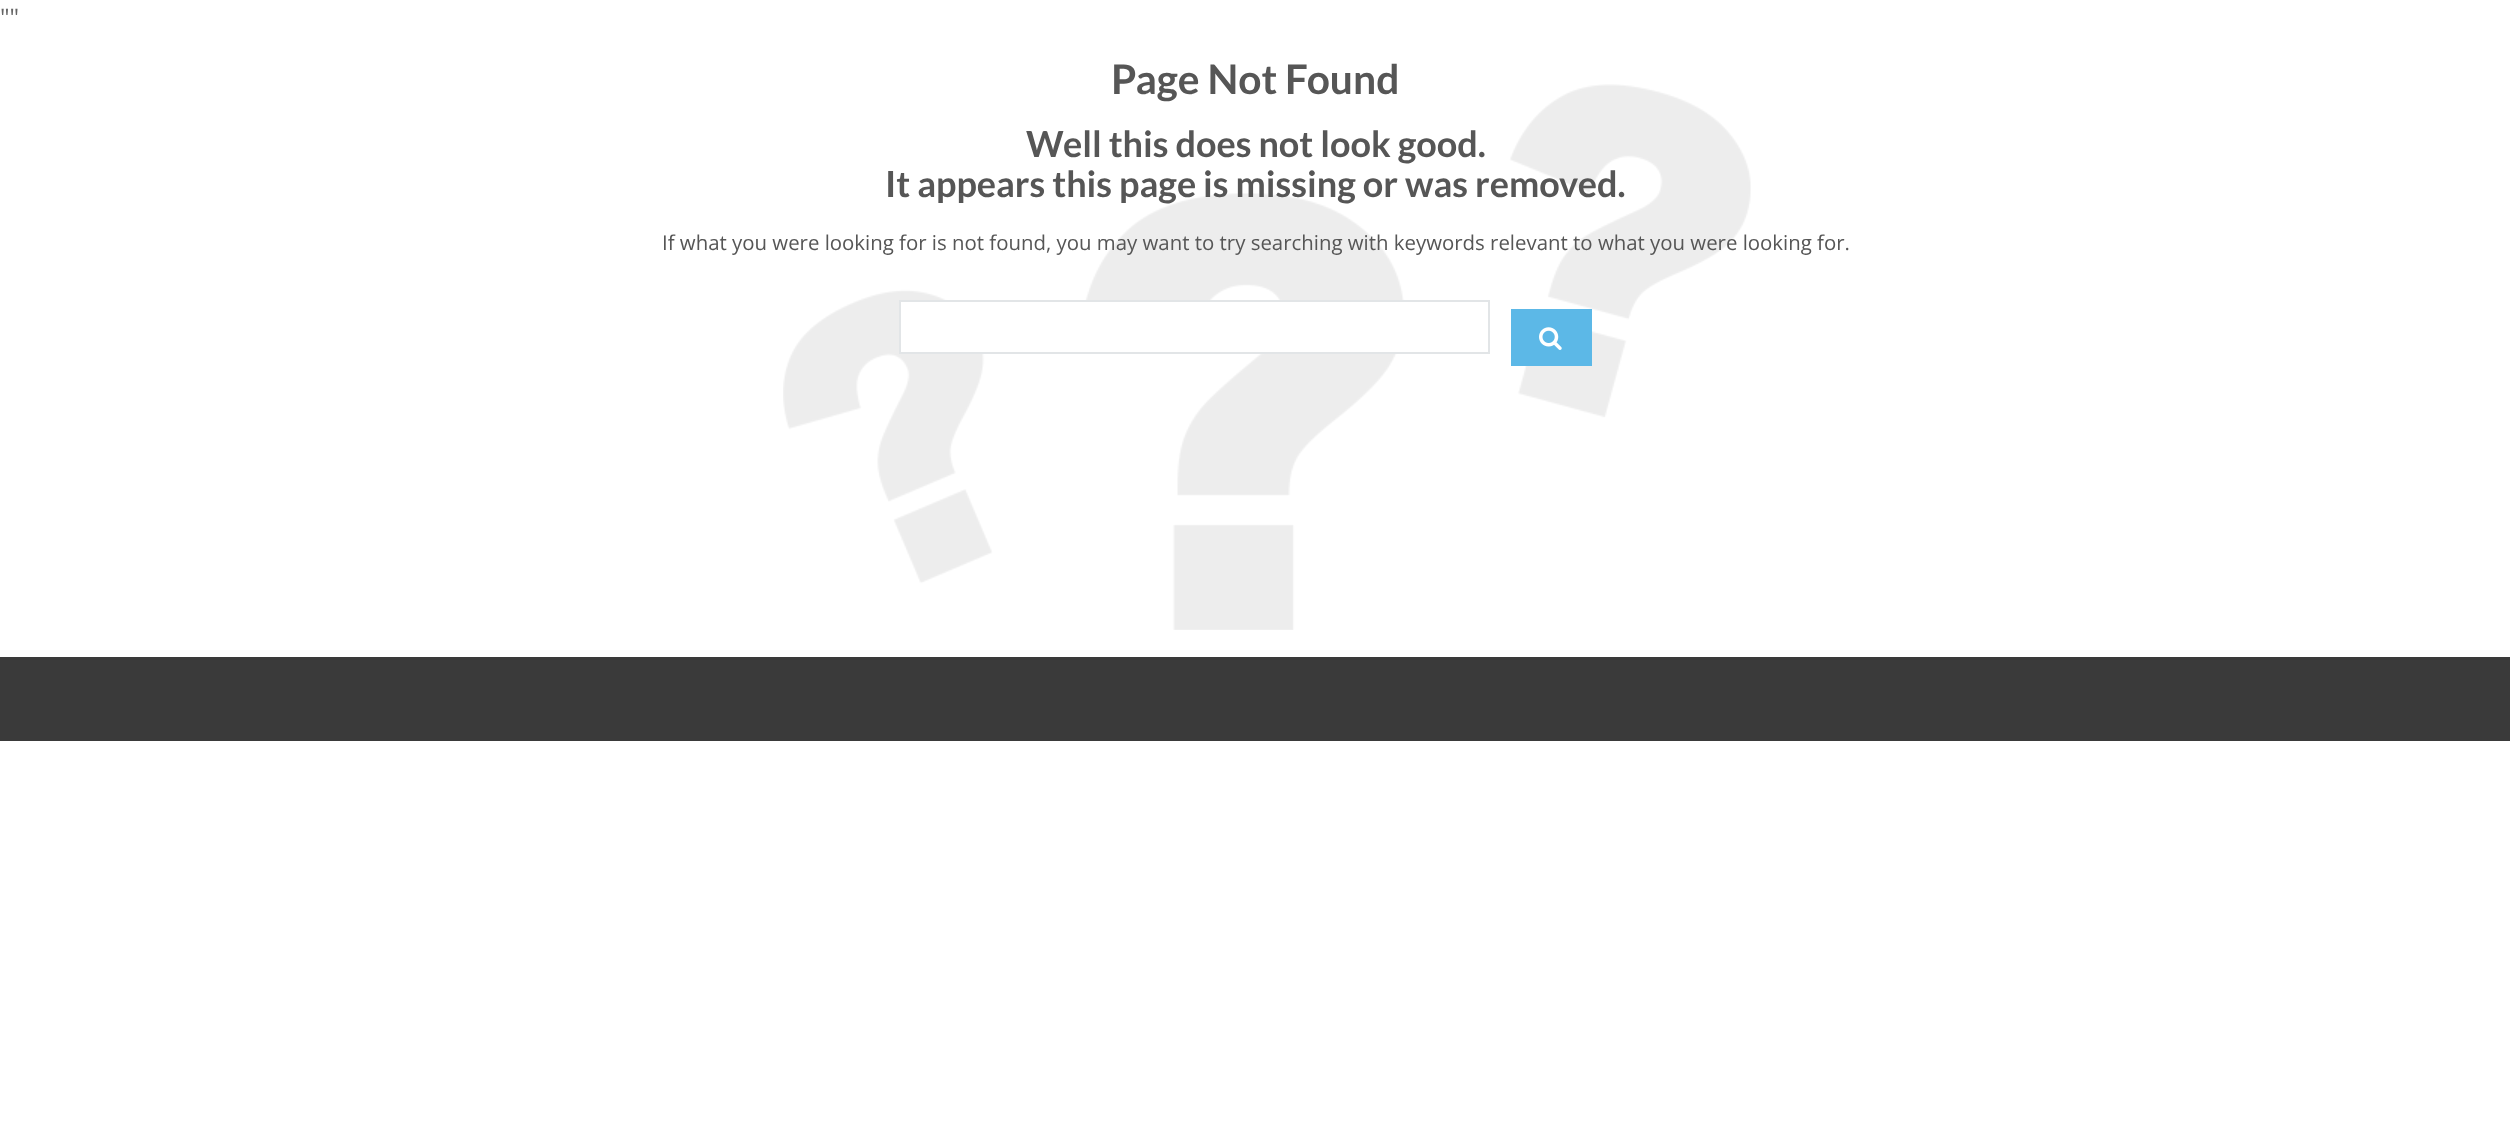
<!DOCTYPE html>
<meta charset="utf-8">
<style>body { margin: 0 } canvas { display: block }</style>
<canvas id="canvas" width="2510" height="1132"></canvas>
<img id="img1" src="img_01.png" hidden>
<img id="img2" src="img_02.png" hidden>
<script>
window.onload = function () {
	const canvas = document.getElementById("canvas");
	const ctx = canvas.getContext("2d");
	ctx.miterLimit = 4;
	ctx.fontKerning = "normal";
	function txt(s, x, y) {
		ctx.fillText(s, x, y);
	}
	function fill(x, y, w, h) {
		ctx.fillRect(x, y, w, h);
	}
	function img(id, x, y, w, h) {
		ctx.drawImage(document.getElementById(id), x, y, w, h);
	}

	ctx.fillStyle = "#FFFFFF";
	fill(0, 0, 2510, 1132);
	img("img1", 783, 84, 968, 546);
	fill(901, 302, 504, 50);
	ctx.strokeStyle = "#E2E5E7";
	ctx.lineWidth = 2;
	ctx.strokeRect(900, 301, 589, 52);
	ctx.fillStyle = "#5CB8E7";
	fill(1511, 309, 81, 57);
	img("img2", 1539, 327, 23, 23);
	ctx.fillStyle = "#3A3A3A";
	fill(0, 657, 2510, 84);
	ctx.font = "24px Open Sans";
	ctx.fillStyle = "#656565";
	txt("\"\"", 0, 26);
	ctx.font = "bold 40.75px Lato";
	ctx.fillStyle = "#565656";
	txt("Page Not Found", 1111, 94);
	ctx.font = "bold 36px Lato";
	txt("Well this does not look good.", 1026, 157);
	txt("It appears this page is missing or was removed.", 885, 197);
	ctx.font = "20.4px Open Sans";
	txt("If what you were looking for is not found, you may want to try searching with keywords relevant to what you were looking for.", 662, 250);
};
</script>
